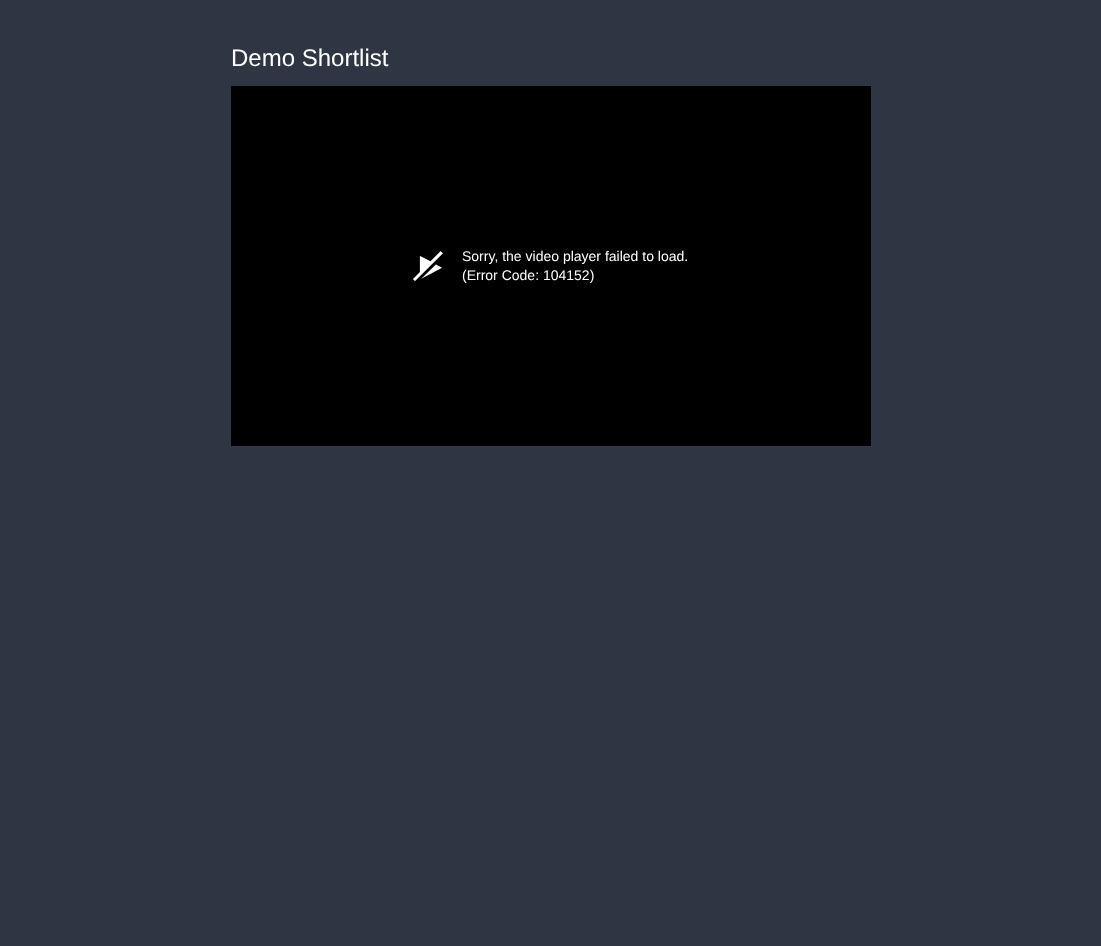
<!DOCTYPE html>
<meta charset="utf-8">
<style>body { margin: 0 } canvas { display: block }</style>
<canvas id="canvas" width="1101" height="946"></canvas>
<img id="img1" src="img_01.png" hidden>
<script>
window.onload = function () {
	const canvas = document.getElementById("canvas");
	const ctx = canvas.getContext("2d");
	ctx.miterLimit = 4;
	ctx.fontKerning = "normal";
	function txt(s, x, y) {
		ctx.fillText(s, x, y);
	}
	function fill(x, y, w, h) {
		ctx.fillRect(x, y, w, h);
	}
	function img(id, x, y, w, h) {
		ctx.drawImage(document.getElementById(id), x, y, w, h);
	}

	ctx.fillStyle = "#2F3542";
	fill(0, 0, 1101, 946);
	ctx.fillStyle = "#000000";
	fill(231, 86, 640, 360);
	img("img1", 413, 251, 30, 30);
	ctx.font = "24px Liberation Sans";
	ctx.fillStyle = "#FFFFFF";
	txt("Demo Shortlist", 231, 66);
	ctx.font = "14px Liberation Sans";
	txt("Sorry, the video player failed to load.", 462, 261);
	txt("(Error Code: 104152)", 462, 280);
};
</script>
